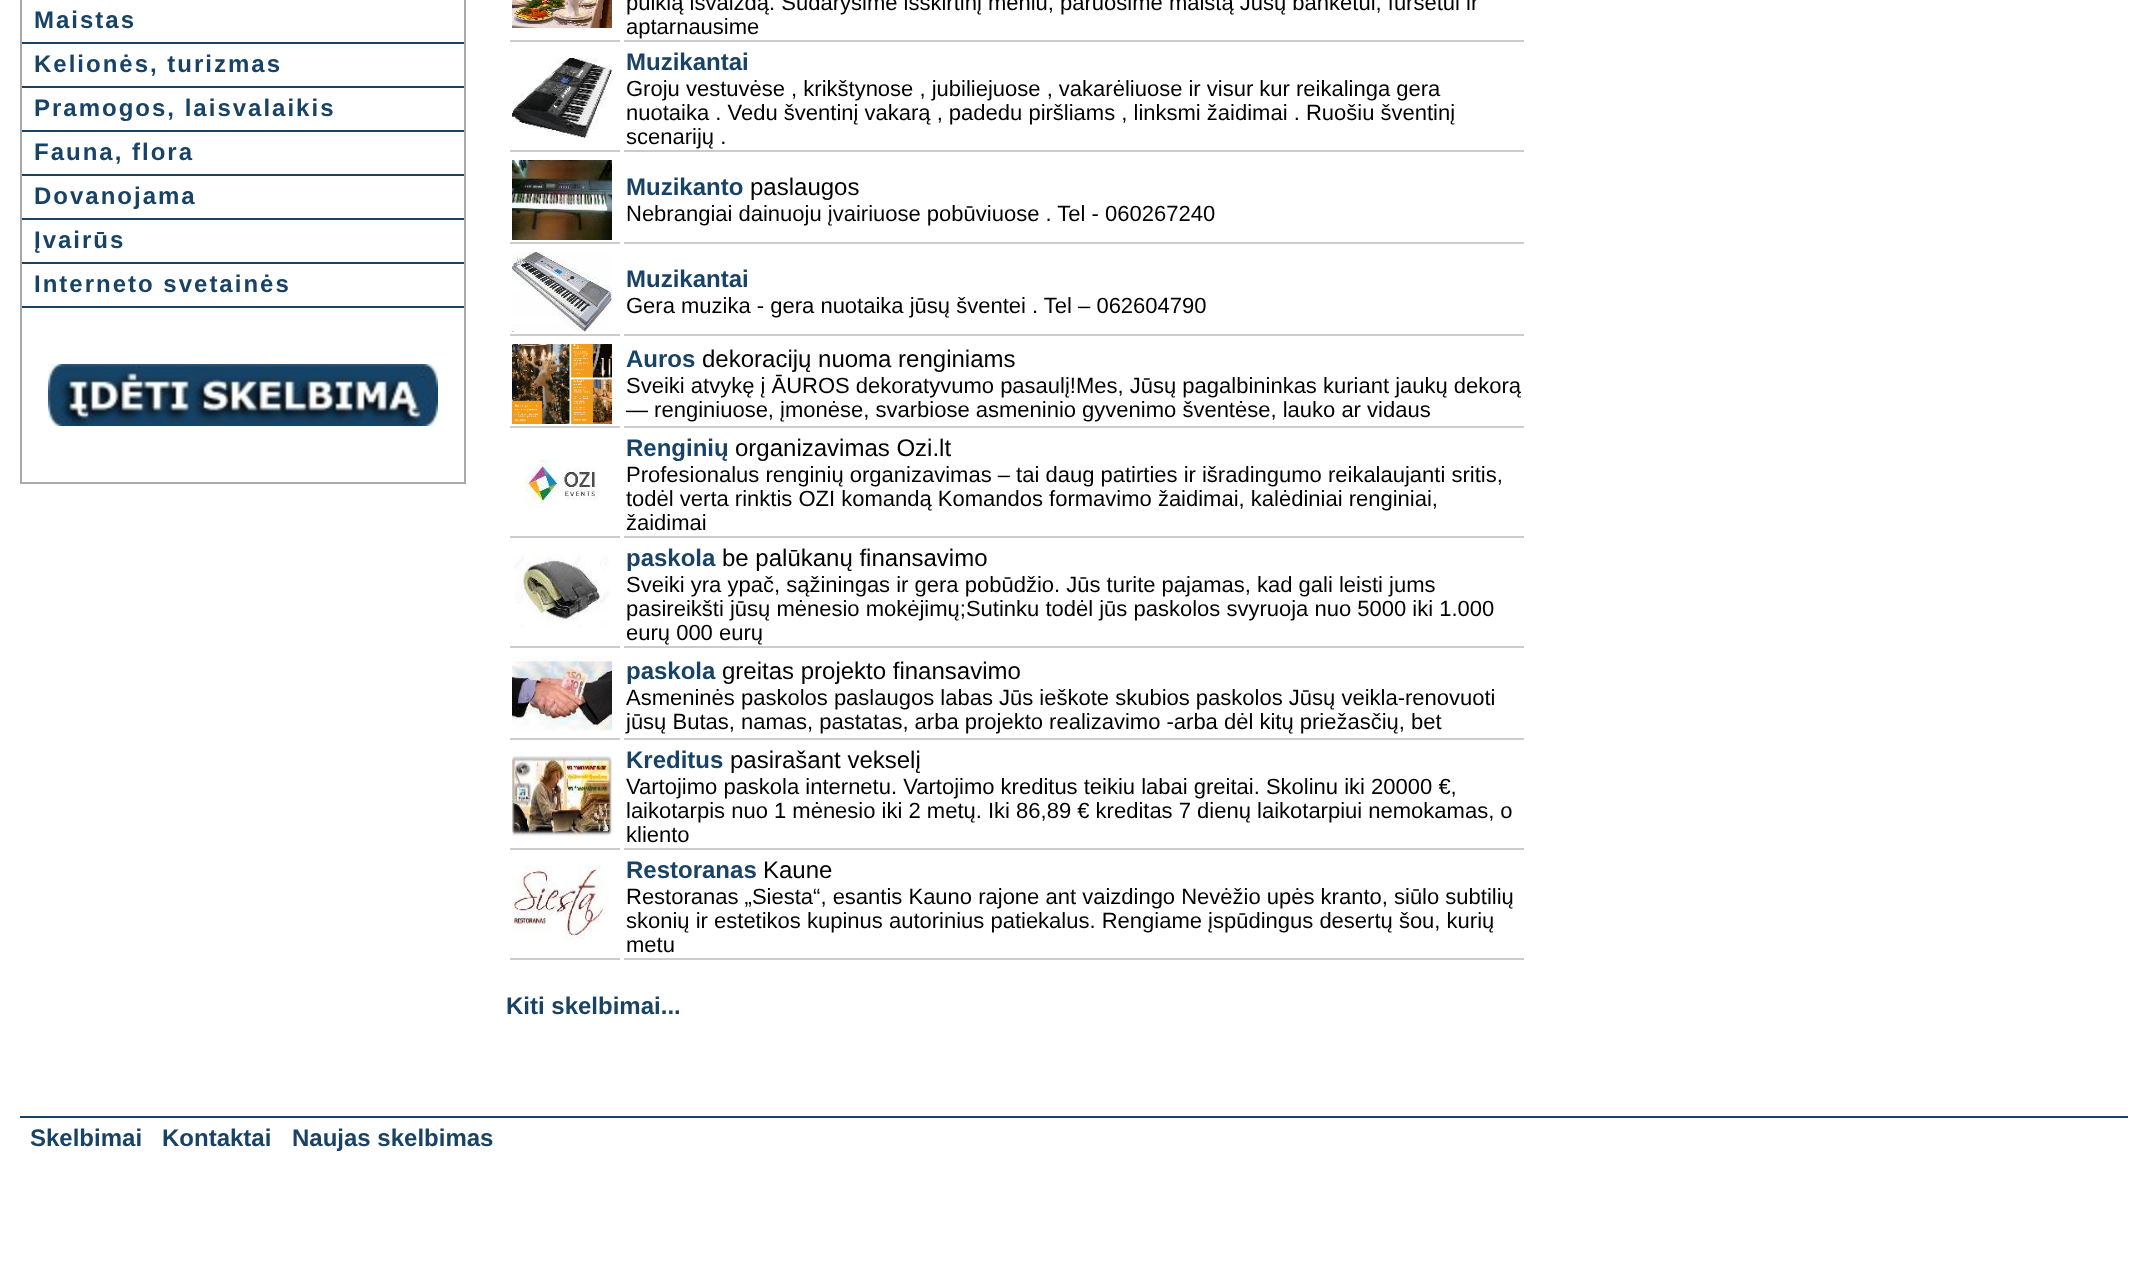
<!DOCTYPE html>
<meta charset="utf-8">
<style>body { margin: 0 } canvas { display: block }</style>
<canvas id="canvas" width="2148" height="1278"></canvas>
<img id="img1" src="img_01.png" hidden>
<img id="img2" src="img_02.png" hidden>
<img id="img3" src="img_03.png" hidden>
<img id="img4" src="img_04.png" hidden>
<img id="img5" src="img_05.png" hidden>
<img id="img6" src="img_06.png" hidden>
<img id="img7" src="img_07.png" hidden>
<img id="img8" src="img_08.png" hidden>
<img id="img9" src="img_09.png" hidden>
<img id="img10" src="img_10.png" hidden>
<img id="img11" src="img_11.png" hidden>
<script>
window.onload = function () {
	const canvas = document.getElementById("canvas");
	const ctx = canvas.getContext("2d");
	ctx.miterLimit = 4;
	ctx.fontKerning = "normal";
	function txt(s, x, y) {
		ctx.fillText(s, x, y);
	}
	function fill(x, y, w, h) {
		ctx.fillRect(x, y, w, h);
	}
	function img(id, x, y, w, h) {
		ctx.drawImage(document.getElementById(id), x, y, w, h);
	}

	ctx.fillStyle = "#FFFFFF";
	fill(0, 0, 2148, 1278);
	ctx.strokeStyle = "#A9A9A9";
	ctx.lineWidth = 2;
	ctx.strokeRect(21, -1, 444, 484);
	ctx.fillStyle = "#184366";
	fill(22, 42, 442, 2);
	fill(22, 86, 442, 2);
	fill(22, 130, 442, 2);
	fill(22, 174, 442, 2);
	fill(22, 218, 442, 2);
	fill(22, 262, 442, 2);
	fill(22, 306, 442, 2);
	img("img1", 48, 364, 390, 62);
	ctx.fillStyle = "#CCCCCC";
	fill(510, 40, 110, 2);
	img("img2", 512, 0, 100, 28);
	fill(624, 40, 900, 2);
	fill(510, 150, 110, 2);
	img("img3", 512, 58, 100, 80);
	fill(624, 150, 900, 2);
	fill(510, 242, 110, 2);
	img("img4", 512, 160, 100, 80);
	fill(624, 242, 900, 2);
	fill(510, 334, 110, 2);
	img("img5", 512, 252, 100, 80);
	fill(624, 334, 900, 2);
	fill(510, 426, 110, 2);
	img("img6", 512, 344, 100, 80);
	fill(624, 426, 900, 2);
	fill(510, 536, 110, 2);
	img("img7", 524, 459, 75, 50);
	fill(624, 536, 900, 2);
	fill(510, 646, 110, 2);
	img("img8", 514, 554, 95, 74);
	fill(624, 646, 900, 2);
	fill(510, 738, 110, 2);
	img("img9", 512, 656, 100, 76);
	fill(624, 738, 900, 2);
	fill(510, 848, 110, 2);
	img("img10", 512, 756, 100, 80);
	fill(624, 848, 900, 2);
	fill(510, 958, 110, 2);
	img("img11", 512, 866, 94, 74);
	fill(624, 958, 900, 2);
	ctx.fillStyle = "#184366";
	fill(20, 1116, 2108, 2);
	ctx.letterSpacing = "2px";
	ctx.font = "bold 24px Liberation Sans";
	txt("Maistas", 34, 28);
	txt("Kelionės, turizmas", 34, 72);
	txt("Pramogos, laisvalaikis", 34, 116);
	txt("Fauna, flora", 34, 160);
	txt("Dovanojama", 34, 204);
	txt("Įvairūs", 34, 248);
	txt("Interneto svetainės", 34, 292);
	ctx.letterSpacing = "0px";
	ctx.font = "22px Liberation Sans";
	ctx.fillStyle = "#000000";
	txt("puikią išvaizdą. Sudarysime išskirtinį meniu, paruošime maistą Jūsų banketui, furšetui ir", 626, 10);
	txt("aptarnausime", 626, 34);
	ctx.font = "bold 24px Liberation Sans";
	ctx.fillStyle = "#184366";
	txt("Muzikantai", 626, 70);
	ctx.font = "22px Liberation Sans";
	ctx.fillStyle = "#000000";
	txt("Groju vestuvėse , krikštynose , jubiliejuose , vakarėliuose ir visur kur reikalinga gera", 626, 96);
	txt("nuotaika . Vedu šventinį vakarą , padedu piršliams , linksmi žaidimai . Ruošiu šventinį", 626, 120);
	txt("scenarijų .", 626, 144);
	ctx.font = "bold 24px Liberation Sans";
	ctx.fillStyle = "#184366";
	txt("Muzikanto", 626, 195);
	ctx.font = "24px Liberation Sans";
	ctx.fillStyle = "#000000";
	txt("paslaugos", 750, 195);
	ctx.font = "22px Liberation Sans";
	txt("Nebrangiai dainuoju įvairiuose pobūviuose . Tel - 060267240", 626, 221);
	ctx.font = "bold 24px Liberation Sans";
	ctx.fillStyle = "#184366";
	txt("Muzikantai", 626, 287);
	ctx.font = "22px Liberation Sans";
	ctx.fillStyle = "#000000";
	txt("Gera muzika - gera nuotaika jūsų šventei . Tel – 062604790", 626, 313);
	ctx.font = "bold 24px Liberation Sans";
	ctx.fillStyle = "#184366";
	txt("Auros", 626, 367);
	ctx.font = "24px Liberation Sans";
	ctx.fillStyle = "#000000";
	txt("dekoracijų nuoma renginiams", 702, 367);
	ctx.font = "22px Liberation Sans";
	txt("Sveiki atvykę į ĀUROS dekoratyvumo pasaulį!Mes, Jūsų pagalbininkas kuriant jaukų dekorą", 626, 393);
	txt("— renginiuose, įmonėse, svarbiose asmeninio gyvenimo šventėse, lauko ar vidaus", 626, 417);
	ctx.font = "bold 24px Liberation Sans";
	ctx.fillStyle = "#184366";
	txt("Renginių", 626, 456);
	ctx.font = "24px Liberation Sans";
	ctx.fillStyle = "#000000";
	txt("organizavimas Ozi.lt", 735, 456);
	ctx.font = "22px Liberation Sans";
	txt("Profesionalus renginių organizavimas – tai daug patirties ir išradingumo reikalaujanti sritis,", 626, 482);
	txt("todėl verta rinktis OZI komandą Komandos formavimo žaidimai, kalėdiniai renginiai,", 626, 506);
	txt("žaidimai", 626, 530);
	ctx.font = "bold 24px Liberation Sans";
	ctx.fillStyle = "#184366";
	txt("paskola", 626, 566);
	ctx.font = "24px Liberation Sans";
	ctx.fillStyle = "#000000";
	txt("be palūkanų finansavimo", 722, 566);
	ctx.font = "22px Liberation Sans";
	txt("Sveiki yra ypač, sąžiningas ir gera pobūdžio. Jūs turite pajamas, kad gali leisti jums", 626, 592);
	txt("pasireikšti jūsų mėnesio mokėjimų;Sutinku todėl jūs paskolos svyruoja nuo 5000 iki 1.000", 626, 616);
	txt("eurų 000 eurų", 626, 640);
	ctx.font = "bold 24px Liberation Sans";
	ctx.fillStyle = "#184366";
	txt("paskola", 626, 679);
	ctx.font = "24px Liberation Sans";
	ctx.fillStyle = "#000000";
	txt("greitas projekto finansavimo", 722, 679);
	ctx.font = "22px Liberation Sans";
	txt("Asmeninės paskolos paslaugos labas Jūs ieškote skubios paskolos Jūsų veikla-renovuoti", 626, 705);
	txt("jūsų Butas, namas, pastatas, arba projekto realizavimo -arba dėl kitų priežasčių, bet", 626, 729);
	ctx.font = "bold 24px Liberation Sans";
	ctx.fillStyle = "#184366";
	txt("Kreditus", 626, 768);
	ctx.font = "24px Liberation Sans";
	ctx.fillStyle = "#000000";
	txt("pasirašant vekselį", 730, 768);
	ctx.font = "22px Liberation Sans";
	txt("Vartojimo paskola internetu. Vartojimo kreditus teikiu labai greitai. Skolinu iki 20000 €,", 626, 794);
	txt("laikotarpis nuo 1 mėnesio iki 2 metų. Iki 86,89 € kreditas 7 dienų laikotarpiui nemokamas, o", 626, 818);
	txt("kliento", 626, 842);
	ctx.font = "bold 24px Liberation Sans";
	ctx.fillStyle = "#184366";
	txt("Restoranas", 626, 878);
	ctx.font = "24px Liberation Sans";
	ctx.fillStyle = "#000000";
	txt("Kaune", 763, 878);
	ctx.font = "22px Liberation Sans";
	txt("Restoranas „Siesta“, esantis Kauno rajone ant vaizdingo Nevėžio upės kranto, siūlo subtilių", 626, 904);
	txt("skonių ir estetikos kupinus autorinius patiekalus. Rengiame įspūdingus desertų šou, kurių", 626, 928);
	txt("metu", 626, 952);
	ctx.font = "bold 24px Liberation Sans";
	ctx.fillStyle = "#184366";
	txt("Kiti skelbimai...", 506, 1014);
	txt("Skelbimai", 30, 1146);
	txt("Kontaktai", 162, 1146);
	txt("Naujas skelbimas", 292, 1146);
};
</script>
